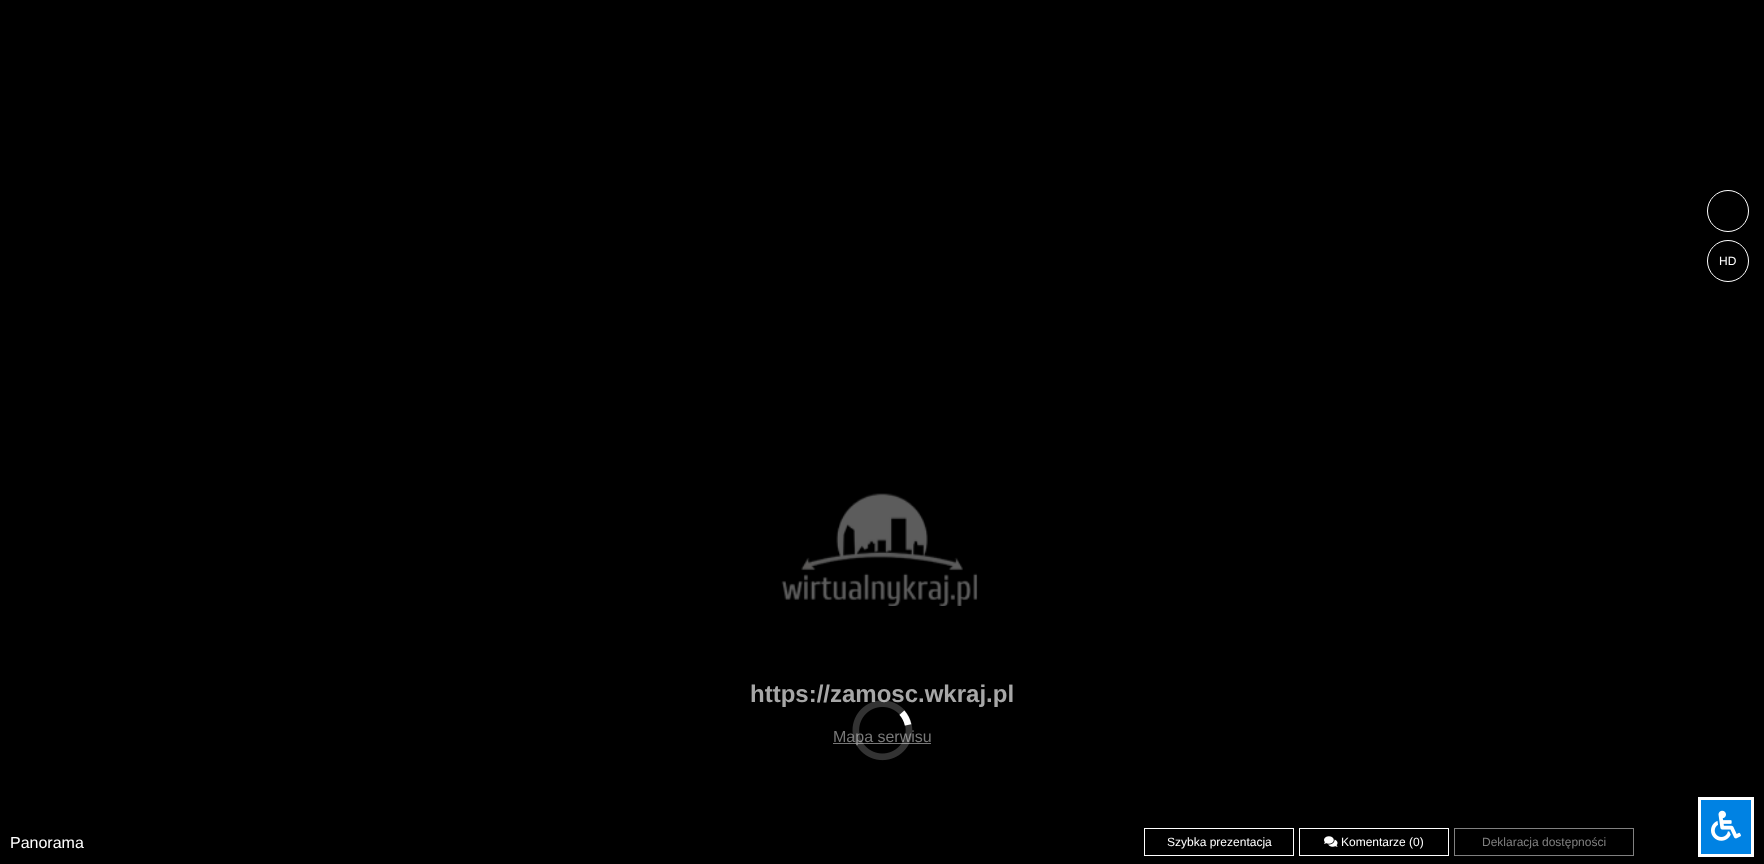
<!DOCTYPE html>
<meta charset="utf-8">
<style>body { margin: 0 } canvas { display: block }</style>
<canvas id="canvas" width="1764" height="864"></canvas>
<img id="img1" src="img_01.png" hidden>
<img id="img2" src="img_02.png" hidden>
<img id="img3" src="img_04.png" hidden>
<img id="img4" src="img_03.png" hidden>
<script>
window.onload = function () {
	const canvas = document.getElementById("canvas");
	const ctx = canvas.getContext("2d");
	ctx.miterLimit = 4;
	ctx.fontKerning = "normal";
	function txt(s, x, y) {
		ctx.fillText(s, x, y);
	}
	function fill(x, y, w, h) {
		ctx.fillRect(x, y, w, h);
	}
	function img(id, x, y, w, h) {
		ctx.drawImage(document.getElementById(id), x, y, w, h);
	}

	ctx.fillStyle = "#000000";
	fill(0, 0, 1764, 864);
	ctx.beginPath();
	ctx.arc(1728, 211, 20.5, 0, Math.PI * 2);
	ctx.strokeStyle = "#FFFFFF";
	ctx.stroke();
	ctx.beginPath();
	ctx.arc(1728, 261, 20.5, 0, Math.PI * 2);
	ctx.stroke();
	ctx.strokeRect(1144.5, 828.5, 149, 27);
	ctx.strokeRect(1299.5, 828.5, 149, 27);
	img("img1", 1324, 836, 14, 11);
	ctx.strokeStyle = "#808080";
	ctx.strokeRect(1454.5, 828.5, 179, 27);
	img("img2", 781, 493, 197, 113);
	ctx.fillStyle = "#787878";
	fill(833, 743, 98, 1);
	ctx.fillStyle = "#0082E3";
	ctx.beginPath();
	ctx.rect(1699.5, 798.5, 53, 57);
	ctx.fill();
	ctx.strokeStyle = "#FFFFFF";
	ctx.lineWidth = 3;
	ctx.stroke();
	img("img3", 1711, 810, 30, 31);
	ctx.font = "12px Liberation Sans";
	ctx.fillStyle = "#FFFFFF";
	txt("HD", 1719, 265);
	ctx.font = "16px Liberation Sans";
	txt("Panorama", 10, 848);
	ctx.font = "12px Liberation Sans";
	txt("Szybka prezentacja", 1167, 846);
	txt("Komentarze (0)", 1341, 846);
	ctx.fillStyle = "#808080";
	txt("Deklaracja dostępności", 1482, 846);
	ctx.font = "bold 24px Liberation Sans";
	ctx.fillStyle = "#A7A7A7";
	txt("https://zamosc.wkraj.pl", 750, 702);
	ctx.font = "16px Liberation Sans";
	ctx.fillStyle = "#787878";
	txt("Mapa serwisu", 833, 742);
	img("img4", 852, 700, 61, 61);
};
</script>
